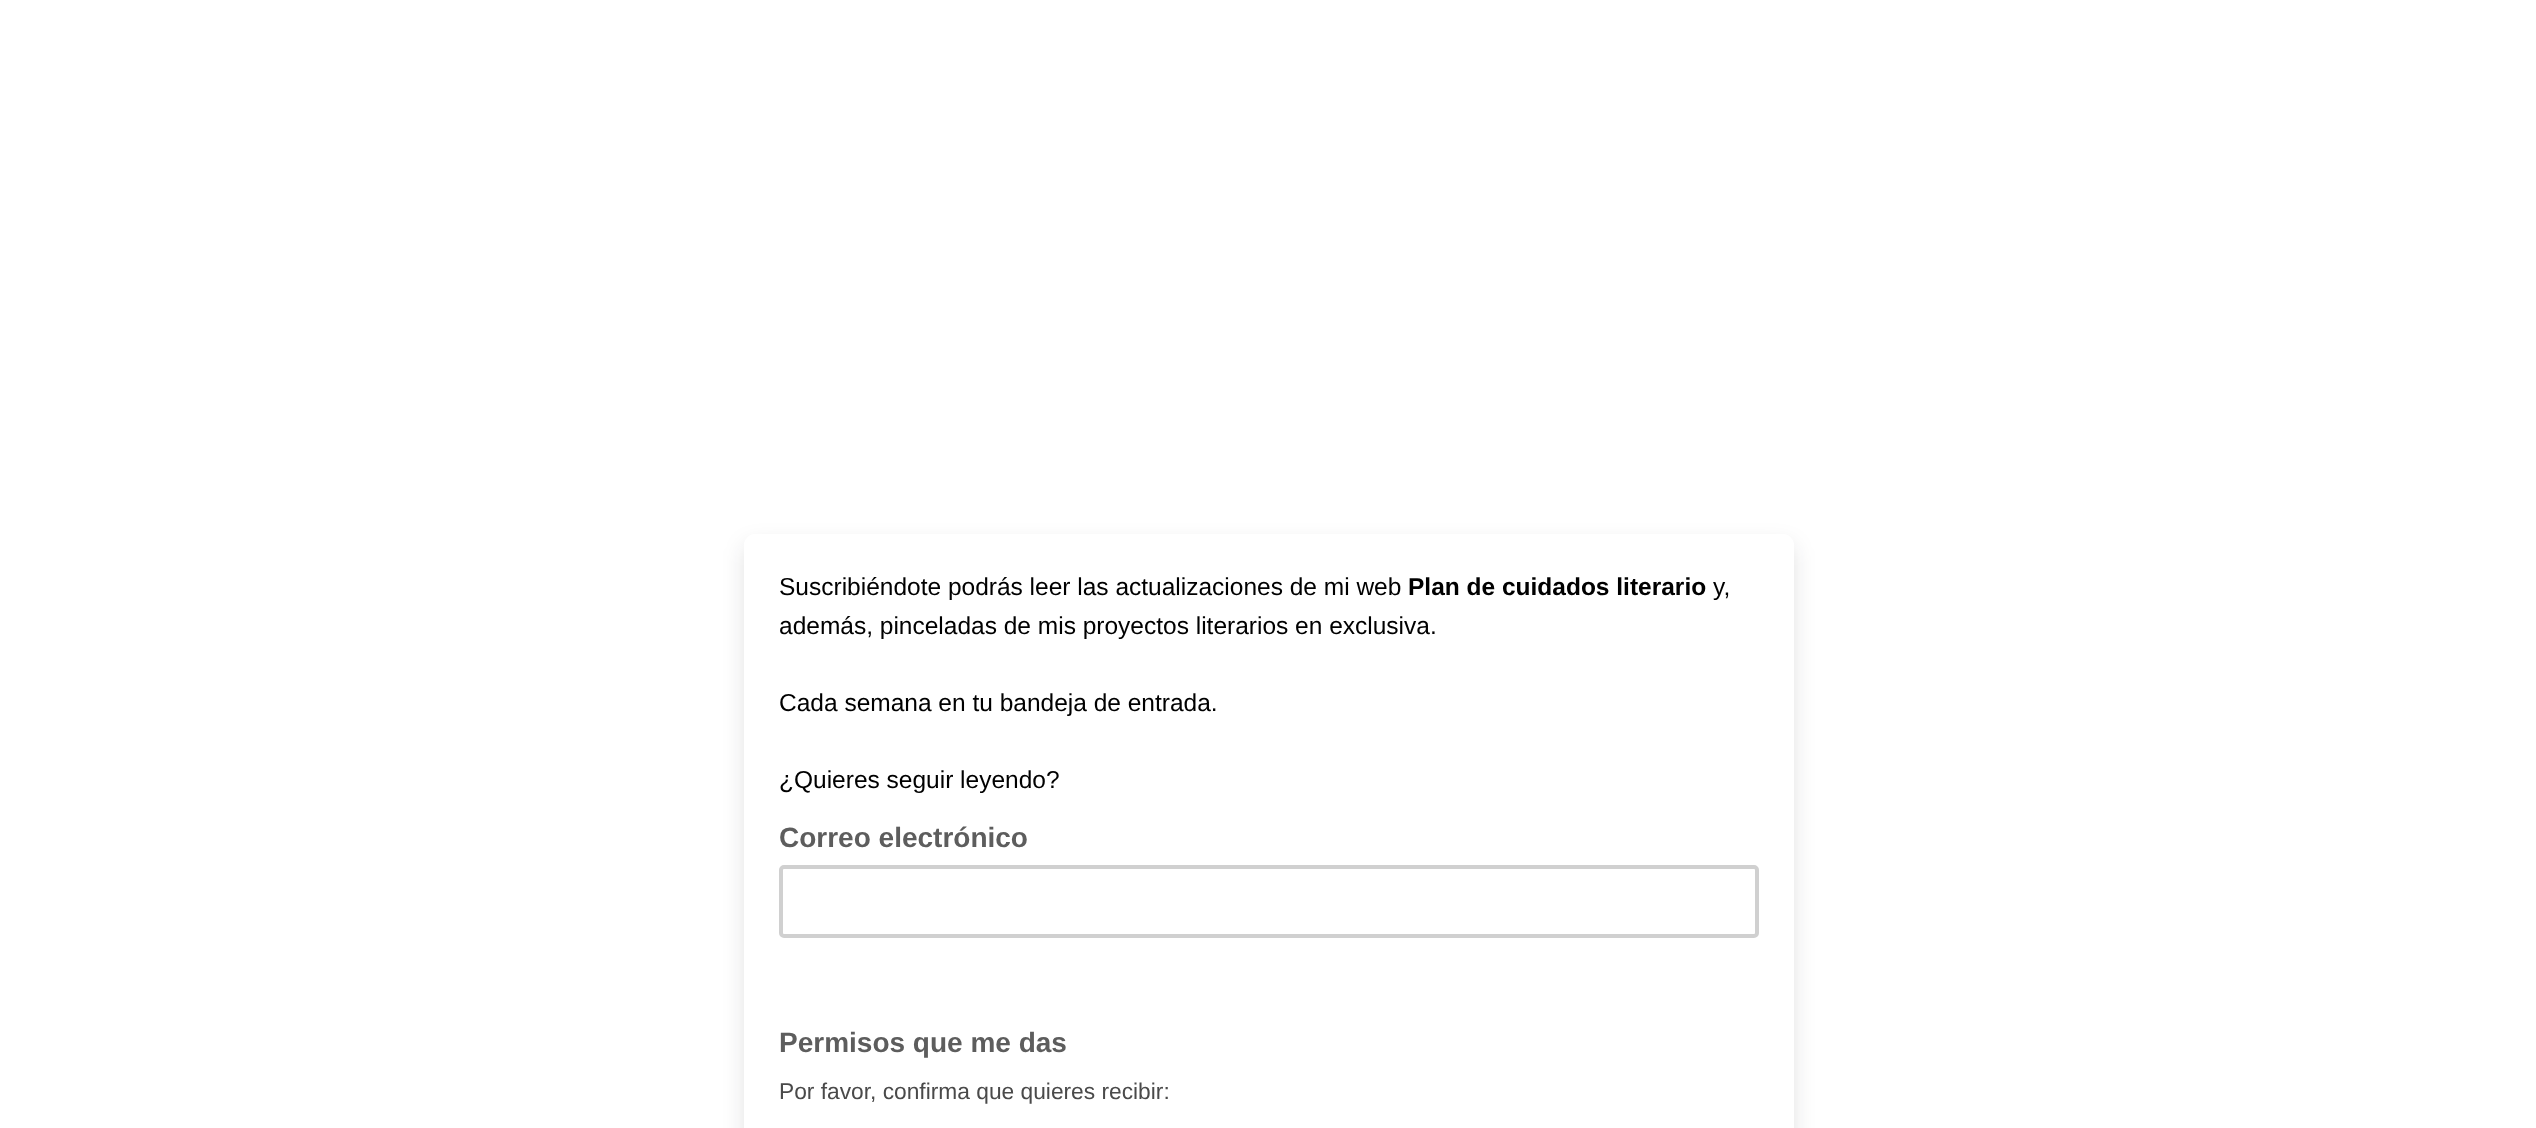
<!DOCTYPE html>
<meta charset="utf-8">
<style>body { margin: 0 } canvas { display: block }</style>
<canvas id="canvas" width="2536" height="1128"></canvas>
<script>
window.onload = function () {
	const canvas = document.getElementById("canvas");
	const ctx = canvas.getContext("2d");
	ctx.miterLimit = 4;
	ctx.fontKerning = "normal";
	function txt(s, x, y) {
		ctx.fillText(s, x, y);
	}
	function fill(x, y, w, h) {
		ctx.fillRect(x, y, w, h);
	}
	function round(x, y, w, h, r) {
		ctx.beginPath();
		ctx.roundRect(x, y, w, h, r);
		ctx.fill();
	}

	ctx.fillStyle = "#FFFFFF";
	fill(0, 0, 2536, 1128);
	ctx.fillStyle = "rgba(13, 18, 22, 0.12)";
	ctx.filter = "blur(10.5px)";
	ctx.beginPath();
	ctx.roundRect(744, 544, 1050, 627, 11);
	ctx.fill();
	ctx.filter = "none";
	ctx.fillStyle = "#FFFFFF";
	round(744, 534, 1050, 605, 11);
	ctx.beginPath();
	ctx.roundRect(781, 867, 976, 69, 3);
	ctx.strokeStyle = "#D0D0D0";
	ctx.lineWidth = 4;
	ctx.stroke();
	ctx.font = "24.5px Liberation Sans";
	ctx.fillStyle = "#000000";
	txt("Suscribiéndote podrás leer las actualizaciones de mi web", 779, 595);
	ctx.font = "bold 24.5px Liberation Sans";
	txt("Plan de cuidados literario", 1408, 595);
	ctx.font = "24.5px Liberation Sans";
	txt("y,", 1713, 595);
	txt("además, pinceladas de mis proyectos literarios en exclusiva.", 779, 634);
	txt("Cada semana en tu bandeja de entrada.", 779, 711);
	txt("¿Quieres seguir leyendo?", 779, 788);
	ctx.font = "bold 28px Liberation Sans";
	ctx.fillStyle = "#5D5D5D";
	txt("Correo electrónico", 779, 847);
	txt("Permisos que me das", 779, 1052);
	ctx.font = "22.75px Liberation Sans";
	ctx.fillStyle = "#4A4A4A";
	txt("Por favor, confirma que quieres recibir:", 779, 1099);
};
</script>
